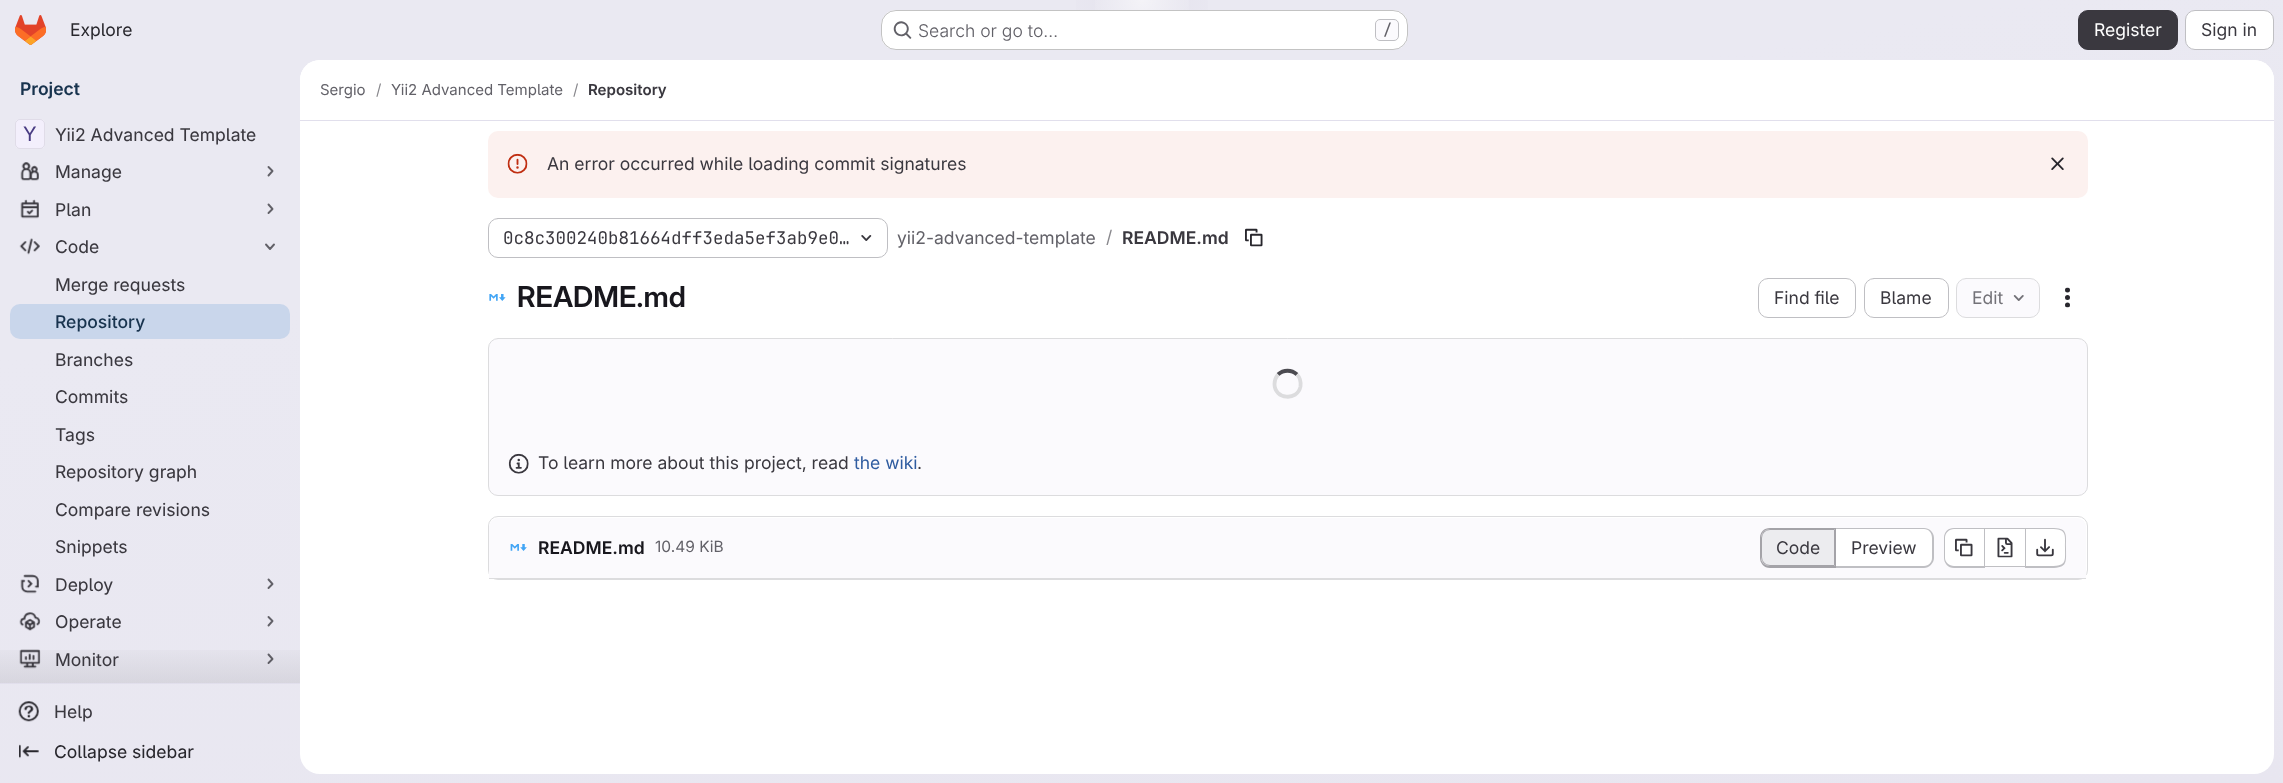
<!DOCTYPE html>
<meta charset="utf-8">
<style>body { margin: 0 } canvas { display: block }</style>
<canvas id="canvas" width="2283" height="783"></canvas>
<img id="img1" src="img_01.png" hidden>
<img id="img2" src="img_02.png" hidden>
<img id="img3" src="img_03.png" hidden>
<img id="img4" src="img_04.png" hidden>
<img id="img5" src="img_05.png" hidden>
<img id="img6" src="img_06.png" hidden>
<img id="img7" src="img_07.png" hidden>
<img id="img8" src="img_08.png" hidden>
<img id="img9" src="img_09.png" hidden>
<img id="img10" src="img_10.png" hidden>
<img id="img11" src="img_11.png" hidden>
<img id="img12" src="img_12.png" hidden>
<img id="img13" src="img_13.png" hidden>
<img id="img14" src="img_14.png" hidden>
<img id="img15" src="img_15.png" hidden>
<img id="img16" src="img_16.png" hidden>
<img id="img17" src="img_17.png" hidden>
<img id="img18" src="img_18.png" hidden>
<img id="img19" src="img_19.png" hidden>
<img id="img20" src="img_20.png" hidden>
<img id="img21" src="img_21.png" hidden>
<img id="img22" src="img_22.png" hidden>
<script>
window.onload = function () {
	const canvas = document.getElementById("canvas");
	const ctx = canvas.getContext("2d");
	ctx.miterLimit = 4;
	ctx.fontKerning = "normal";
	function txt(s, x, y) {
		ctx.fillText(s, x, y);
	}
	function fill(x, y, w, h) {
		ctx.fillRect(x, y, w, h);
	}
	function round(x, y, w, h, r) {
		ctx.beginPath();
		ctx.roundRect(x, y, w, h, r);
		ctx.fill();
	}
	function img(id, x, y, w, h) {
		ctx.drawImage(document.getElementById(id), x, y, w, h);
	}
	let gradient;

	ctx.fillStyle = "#FFFFFF";
	fill(0, 0, 2283, 783);
	gradient = ctx.createLinearGradient(1243, 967, 1040, -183);
	gradient.addColorStop(0, "#E8E6F0");
	gradient.addColorStop(0.7, "#EAE9F2");
	ctx.fillStyle = gradient;
	fill(0, 0, 2283, 783);
	gradient = ctx.createRadialGradient(1142, 0, 0, 1142, 0, 1142);
	gradient.addColorStop(0, "#E4E2ED");
	gradient.addColorStop(0.08, "rgba(228, 226, 237, 0)");
	ctx.fillStyle = gradient;
	ctx.beginPath();
	ctx.rect(1076, 0, 132, 45);
	ctx.save();
	ctx.clip();
	ctx.scale(1, 784 / 1142);
	ctx.fillRect(0, 0, 2283, 1141);
	ctx.restore();
	gradient = ctx.createRadialGradient(1142, 0, 0, 1142, 0, 1142);
	gradient.addColorStop(0, "#E4E2EC");
	gradient.addColorStop(0.05, "rgba(228, 226, 236, 0)");
	ctx.fillStyle = gradient;
	ctx.beginPath();
	ctx.rect(1131, 2, 22, 1);
	ctx.save();
	ctx.clip();
	ctx.scale(1, 784 / 1142);
	ctx.fillRect(0, 0, 2283, 1141);
	ctx.restore();
	gradient = ctx.createRadialGradient(1142, 0, 0, 1142, 0, 1385);
	gradient.addColorStop(0, "rgba(255, 255, 255, 0.6)");
	gradient.addColorStop(0.04, "rgba(255, 255, 255, 0)");
	ctx.fillStyle = gradient;
	fill(1095, 0, 94, 46);
	img("img1", 15, 15, 31, 30);
	ctx.fillStyle = "#FFFFFF";
	round(881, 10, 527, 40, 15);
	ctx.beginPath();
	ctx.roundRect(881.5, 10.5, 526, 39, 14.5);
	ctx.strokeStyle = "rgba(5, 5, 6, 0.24)";
	ctx.stroke();
	img("img2", 893, 21, 19, 18);
	ctx.fillStyle = "#FBFAFD";
	ctx.beginPath();
	ctx.roundRect(1375.5, 19.5, 23, 21, 4.5);
	ctx.fill();
	ctx.strokeStyle = "#BFBFC3";
	ctx.stroke();
	ctx.fillStyle = "#3A383F";
	ctx.beginPath();
	ctx.roundRect(2078.5, 10.5, 99, 39, 9.5);
	ctx.fill();
	ctx.strokeStyle = "#3A383F";
	ctx.stroke();
	ctx.fillStyle = "#FFFFFF";
	ctx.beginPath();
	ctx.roundRect(2185.5, 10.5, 88, 39, 9.5);
	ctx.fill();
	ctx.strokeStyle = "#BFBFC3";
	ctx.stroke();
	ctx.fillStyle = "#E1DFEC";
	fill(0, 683, 300, 1);
	ctx.fillStyle = "#FFFFFF";
	round(15, 119, 30, 30, 5);
	ctx.fillStyle = "rgba(203, 187, 242, 0.24)";
	round(15, 119, 30, 30, 5);
	ctx.beginPath();
	ctx.roundRect(15.5, 119.5, 29, 29, 4.5);
	ctx.strokeStyle = "rgba(5, 5, 6, 0.08)";
	ctx.stroke();
	img("img3", 20, 162, 19, 19);
	ctx.beginPath();
	ctx.moveTo(268.5, 167);
	ctx.lineTo(272.5, 171);
	ctx.lineTo(268.5, 175.5);
	ctx.strokeStyle = "#626168";
	ctx.lineWidth = 1.9;
	ctx.lineCap = "round";
	ctx.lineJoin = "round";
	ctx.stroke();
	img("img4", 20, 199, 19, 20);
	ctx.beginPath();
	ctx.moveTo(268.5, 204.5);
	ctx.lineTo(272.5, 209);
	ctx.lineTo(268.5, 213);
	ctx.stroke();
	img("img5", 19, 238, 21, 17);
	ctx.beginPath();
	ctx.moveTo(274, 244.5);
	ctx.lineTo(270, 249);
	ctx.lineTo(266, 244.5);
	ctx.stroke();
	ctx.fillStyle = "#C9D6EB";
	round(10, 304, 280, 35, 10);
	img("img6", 20, 574, 19, 20);
	ctx.beginPath();
	ctx.moveTo(268.5, 579.5);
	ctx.lineTo(272.5, 584);
	ctx.lineTo(268.5, 588);
	ctx.stroke();
	img("img7", 19, 612, 22, 19);
	ctx.beginPath();
	ctx.moveTo(268.5, 617);
	ctx.lineTo(272.5, 621);
	ctx.lineTo(268.5, 625.5);
	ctx.stroke();
	img("img8", 19, 649, 22, 20);
	ctx.beginPath();
	ctx.moveTo(268.5, 654.5);
	ctx.lineTo(272.5, 659);
	ctx.lineTo(268.5, 663);
	ctx.stroke();
	gradient = ctx.createLinearGradient(150, 638, 150, 683);
	gradient.addColorStop(0, "rgba(5, 5, 6, 0)");
	gradient.addColorStop(1, "rgba(5, 5, 6, 0.08)");
	ctx.fillStyle = gradient;
	fill(0, 650, 300, 33);
	img("img9", 18, 701, 21, 21);
	img("img10", 19, 744, 20, 15);
	ctx.fillStyle = "#FFFFFF";
	round(300, 60, 1974, 714, 20);
	ctx.beginPath();
	ctx.roundRect(300, 60, 1974, 61, [20, 20, 0, 0]);
	ctx.fill();
	ctx.fillStyle = "#E1DFEC";
	fill(300, 120, 1974, 1);
	ctx.fillStyle = "#FCF1EF";
	round(488, 131, 1600, 67, 10);
	img("img11", 507, 153, 21, 21);
	img("img12", 2051, 157, 13, 13);
	ctx.beginPath();
	ctx.roundRect(488.5, 218.5, 399, 39, 9.5);
	ctx.strokeStyle = "#BFBFC3";
	ctx.lineWidth = 1;
	ctx.lineJoin = "miter";
	ctx.stroke();
	img("img13", 861, 235, 11, 6);
	img("img14", 1245, 228, 18, 19);
	img("img15", 489, 294, 17, 7);
	ctx.beginPath();
	ctx.roundRect(1758.5, 278.5, 97, 39, 9.5);
	ctx.stroke();
	ctx.beginPath();
	ctx.roundRect(1864.5, 278.5, 84, 39, 9.5);
	ctx.stroke();
	ctx.fillStyle = "#FBFAFD";
	ctx.beginPath();
	ctx.roundRect(1956.5, 278.5, 83, 39, 9.5);
	ctx.fill();
	ctx.strokeStyle = "#DCDCDE";
	ctx.stroke();
	img("img16", 2013, 295, 11, 6);
	img("img17", 2065, 287, 5, 21);
	ctx.beginPath();
	ctx.roundRect(488.5, 338.5, 1599, 157, 9.5);
	ctx.fill();
	ctx.stroke();
	ctx.beginPath();
	ctx.moveTo(1278, 374.5);
	ctx.bezierCurveTo(1283.5, 369.5, 1291.5, 369.5, 1297, 374.5);
	ctx.strokeStyle = "#4C4B51";
	ctx.lineWidth = 3.8;
	ctx.lineCap = "butt";
	ctx.stroke();
	ctx.beginPath();
	ctx.moveTo(1297, 374.5);
	ctx.bezierCurveTo(1300, 377.5, 1301, 382, 1300.5, 386.5);
	ctx.bezierCurveTo(1297.5, 401.5, 1274.5, 399.5, 1274.5, 384);
	ctx.bezierCurveTo(1274.5, 380.5, 1276, 377, 1278, 374.5);
	ctx.strokeStyle = "#DCDCDE";
	ctx.stroke();
	img("img18", 508, 453, 21, 21);
	ctx.beginPath();
	ctx.roundRect(488.5, 516.5, 1599, 63, 9.5);
	ctx.lineWidth = 1;
	ctx.stroke();
	ctx.beginPath();
	ctx.roundRect(489, 518, 1597, 61, [9, 9, 0, 0]);
	ctx.fill();
	ctx.fillStyle = "#DCDCDE";
	fill(489, 578, 1597, 1);
	img("img19", 510, 544, 17, 7);
	ctx.fillStyle = "#ECECEF";
	ctx.beginPath();
	ctx.roundRect(1761.5, 529.5, 73, 36, [8.5, 0, 0, 8.5]);
	ctx.fill();
	ctx.strokeStyle = "#A4A3A8";
	ctx.stroke();
	ctx.fillStyle = "#A4A3A8";
	ctx.beginPath();
	ctx.moveTo(1770, 528);
	ctx.lineTo(1835, 528);
	ctx.lineTo(1835, 568);
	ctx.lineTo(1770, 568);
	ctx.bezierCurveTo(1764, 568, 1760, 563, 1760, 558);
	ctx.lineTo(1760, 538);
	ctx.bezierCurveTo(1760, 532, 1764, 528, 1770, 528);
	ctx.closePath();
	ctx.moveTo(1770, 529);
	ctx.lineTo(1835, 529);
	ctx.lineTo(1835, 566);
	ctx.lineTo(1770, 566);
	ctx.bezierCurveTo(1765, 566, 1761, 562, 1761, 558);
	ctx.lineTo(1761, 538);
	ctx.bezierCurveTo(1761, 533, 1765, 529, 1770, 529);
	ctx.closePath();
	ctx.fill("evenodd");
	ctx.fillStyle = "#FFFFFF";
	ctx.beginPath();
	ctx.roundRect(1836, 529, 97, 37, [0, 9, 9, 0]);
	ctx.fill();
	ctx.fillStyle = "#BFBFC3";
	ctx.beginPath();
	ctx.moveTo(1836, 528);
	ctx.lineTo(1924, 528);
	ctx.bezierCurveTo(1929, 528, 1934, 532, 1934, 538);
	ctx.lineTo(1934, 558);
	ctx.bezierCurveTo(1934, 563, 1929, 568, 1924, 568);
	ctx.lineTo(1836, 568);
	ctx.closePath();
	ctx.moveTo(1836, 529);
	ctx.lineTo(1924, 529);
	ctx.bezierCurveTo(1929, 529, 1932, 533, 1932, 538);
	ctx.lineTo(1932, 558);
	ctx.bezierCurveTo(1932, 562, 1929, 566, 1924, 566);
	ctx.lineTo(1836, 566);
	ctx.closePath();
	ctx.fill("evenodd");
	ctx.fillStyle = "#A4A3A8";
	fill(1835, 528, 1, 40);
	ctx.fillStyle = "#FFFFFF";
	ctx.beginPath();
	ctx.roundRect(1945, 529, 39, 37, [9, 0, 0, 9]);
	ctx.fill();
	ctx.fillStyle = "#BFBFC3";
	ctx.beginPath();
	ctx.moveTo(1954, 528);
	ctx.lineTo(1984, 528);
	ctx.lineTo(1984, 568);
	ctx.lineTo(1954, 568);
	ctx.bezierCurveTo(1948, 568, 1944, 563, 1944, 558);
	ctx.lineTo(1944, 538);
	ctx.bezierCurveTo(1944, 532, 1948, 528, 1954, 528);
	ctx.closePath();
	ctx.moveTo(1954, 529);
	ctx.lineTo(1984, 529);
	ctx.lineTo(1984, 566);
	ctx.lineTo(1954, 566);
	ctx.bezierCurveTo(1949, 566, 1945, 562, 1945, 558);
	ctx.lineTo(1945, 538);
	ctx.bezierCurveTo(1945, 533, 1949, 529, 1954, 529);
	ctx.closePath();
	ctx.fill("evenodd");
	img("img20", 1955, 538, 18, 19);
	ctx.fillStyle = "#FFFFFF";
	fill(1985, 529, 40, 37);
	ctx.fillStyle = "#BFBFC3";
	fill(1985, 528, 40, 1);
	fill(1985, 566, 40, 1);
	fill(1984, 528, 1, 40);
	img("img21", 1997, 537, 16, 21);
	ctx.fillStyle = "#FFFFFF";
	ctx.beginPath();
	ctx.roundRect(2026, 529, 39, 37, [0, 9, 9, 0]);
	ctx.fill();
	ctx.fillStyle = "#BFBFC3";
	ctx.beginPath();
	ctx.moveTo(2026, 528);
	ctx.lineTo(2051, 528);
	ctx.bezierCurveTo(2068, 528, 2066, 533, 2066, 548);
	ctx.bezierCurveTo(2066, 562, 2068, 568, 2051, 568);
	ctx.lineTo(2026, 568);
	ctx.closePath();
	ctx.moveTo(2026, 529);
	ctx.lineTo(2051, 529);
	ctx.bezierCurveTo(2067, 529, 2065, 534, 2065, 548);
	ctx.bezierCurveTo(2065, 561, 2067, 566, 2051, 566);
	ctx.lineTo(2026, 566);
	ctx.closePath();
	ctx.fill("evenodd");
	fill(2025, 528, 1, 40);
	img("img22", 2036, 538, 18, 19);
	ctx.font = "17.5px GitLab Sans";
	ctx.fillStyle = "#28272D";
	txt("Explore", 70, 36);
	ctx.font = "300 17.5px GitLab Sans";
	ctx.fillStyle = "#626168";
	txt("Search or go to…", 918, 37);
	ctx.font = "500 15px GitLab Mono";
	txt("/", 1383, 35);
	ctx.font = "17.5px GitLab Sans";
	ctx.fillStyle = "#FFFFFF";
	txt("Register", 2094, 36);
	ctx.fillStyle = "#3A383F";
	txt("Sign in", 2201, 36);
	ctx.font = "600 17.5px GitLab Sans";
	ctx.fillStyle = "#18334E";
	txt("Project", 20, 95);
	ctx.font = "20px 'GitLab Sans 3'";
	ctx.fillStyle = "#493C83";
	txt("Y", 23, 141);
	ctx.font = "17.5px 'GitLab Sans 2'";
	ctx.fillStyle = "#3A383F";
	txt("Yii2 Advanced Template", 55, 141);
	txt("Manage", 55, 178);
	txt("Plan", 55, 216);
	txt("Code", 55, 253);
	txt("Merge requests", 55, 291);
	ctx.font = "500 17.5px GitLab Sans";
	ctx.fillStyle = "#18334E";
	txt("Repository", 55, 328);
	ctx.font = "17.5px 'GitLab Sans 2'";
	ctx.fillStyle = "#3A383F";
	txt("Branches", 55, 366);
	txt("Commits", 55, 403);
	txt("Tags", 55, 441);
	txt("Repository graph", 55, 478);
	txt("Compare revisions", 55, 516);
	txt("Snippets", 55, 553);
	txt("Deploy", 55, 591);
	txt("Operate", 55, 628);
	txt("Monitor", 55, 666);
	txt("Help", 54, 718);
	ctx.fillStyle = "#28272D";
	txt("Collapse sidebar", 54, 758);
	ctx.font = "15px GitLab Sans";
	ctx.fillStyle = "#626168";
	txt("Sergio", 320, 95);
	ctx.fillStyle = "#89888D";
	txt("/", 376, 95);
	ctx.fillStyle = "#626168";
	txt("Yii2 Advanced Template", 391, 95);
	ctx.fillStyle = "#89888D";
	txt("/", 573, 95);
	ctx.font = "600 15px GitLab Sans";
	ctx.fillStyle = "#3A383F";
	txt("Repository", 588, 95);
	ctx.font = "17.5px GitLab Sans";
	txt("An error occurred while loading commit signatures", 547, 170);
	ctx.font = "17.5px GitLab Mono";
	txt("0c8c300240b81664dff3eda5ef3ab9e0…", 503, 244);
	ctx.font = "17.5px GitLab Sans";
	ctx.fillStyle = "#626168";
	txt("yii2-advanced-template", 897, 244);
	ctx.fillStyle = "#89888D";
	txt("/", 1106, 243);
	ctx.font = "600 17.5px GitLab Sans";
	ctx.fillStyle = "#3A383F";
	txt("README.md", 1122, 244);
	ctx.font = "600 28.75px 'GitLab Sans 2'";
	ctx.fillStyle = "#18171D";
	txt("README.md", 517, 307);
	ctx.font = "17.5px GitLab Sans";
	ctx.fillStyle = "#3A383F";
	txt("Find file", 1774, 304);
	txt("Blame", 1880, 304);
	ctx.fillStyle = "#737278";
	txt("Edit", 1972, 304);
	ctx.fillStyle = "#3A383F";
	txt("To learn more about this project, read", 538, 469);
	ctx.fillStyle = "#2F5CA0";
	txt("the wiki", 854, 469);
	ctx.fillStyle = "#3A383F";
	txt(".", 917, 469);
	ctx.font = "600 17.5px GitLab Sans";
	ctx.fillStyle = "#18171D";
	txt("README.md", 538, 554);
	ctx.font = "15.5px GitLab Sans";
	ctx.fillStyle = "#626168";
	txt("10.49 KiB", 655, 552);
	ctx.font = "17.5px GitLab Sans";
	ctx.fillStyle = "#3A383F";
	txt("Code", 1776, 554);
	txt("Preview", 1851, 554);
};
</script>
